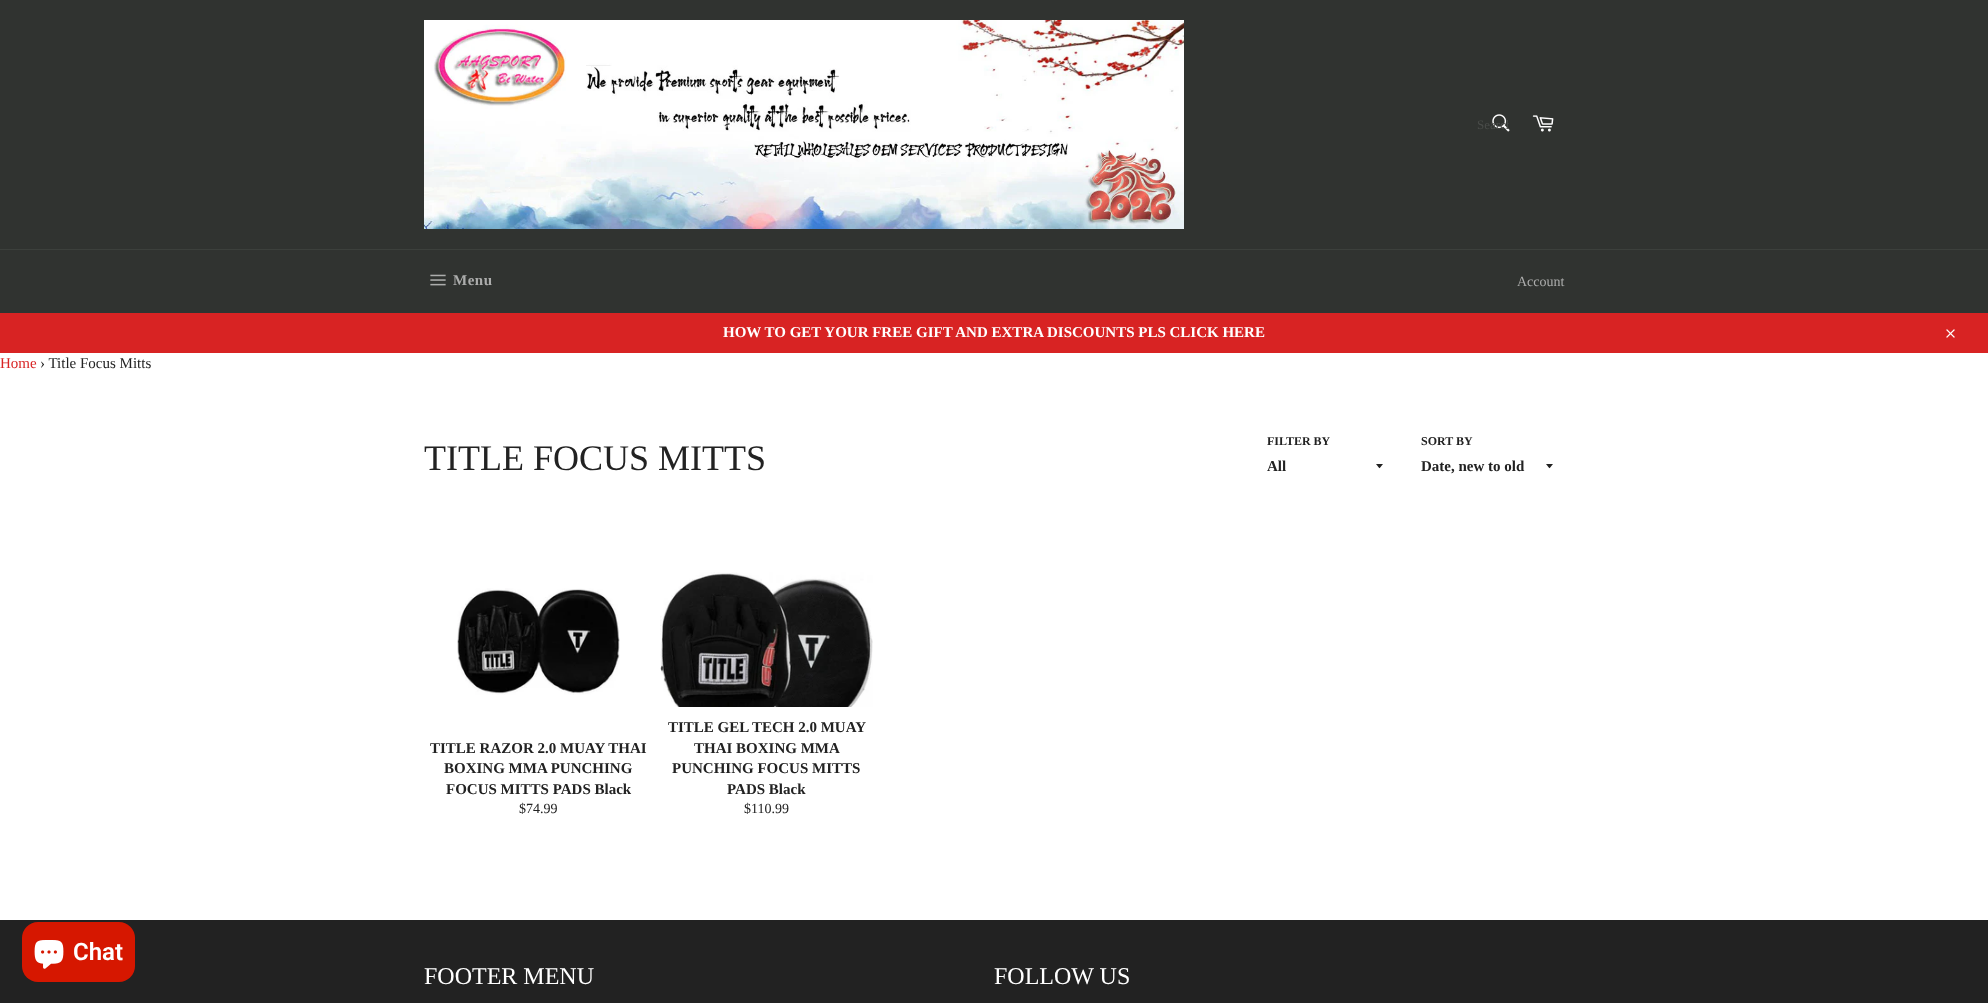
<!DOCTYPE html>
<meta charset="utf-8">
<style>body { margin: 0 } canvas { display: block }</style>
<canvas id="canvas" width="1988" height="1003"></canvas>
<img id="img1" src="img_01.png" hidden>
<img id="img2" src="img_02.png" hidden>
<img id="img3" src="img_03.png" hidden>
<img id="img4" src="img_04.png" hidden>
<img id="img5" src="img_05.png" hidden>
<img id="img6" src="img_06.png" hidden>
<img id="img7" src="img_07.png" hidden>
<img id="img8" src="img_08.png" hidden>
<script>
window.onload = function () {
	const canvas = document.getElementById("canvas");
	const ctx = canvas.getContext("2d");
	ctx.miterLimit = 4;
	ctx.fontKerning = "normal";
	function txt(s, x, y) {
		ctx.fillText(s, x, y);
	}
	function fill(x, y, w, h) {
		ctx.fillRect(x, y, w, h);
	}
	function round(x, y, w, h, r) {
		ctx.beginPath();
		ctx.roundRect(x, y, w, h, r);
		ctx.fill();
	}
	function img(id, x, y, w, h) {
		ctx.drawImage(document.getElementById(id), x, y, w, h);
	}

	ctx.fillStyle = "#FFFFFF";
	fill(0, 0, 1988, 1003);
	ctx.fillStyle = "#303330";
	fill(0, 0, 1988, 249);
	img("img1", 424, 20, 760, 209);
	img("img2", 1492, 114, 18, 18);
	img("img3", 1532, 115, 22, 17);
	fill(0, 250, 1988, 63);
	ctx.fillStyle = "#3C403C";
	fill(0, 249, 1988, 1);
	img("img4", 430, 274, 16, 12);
	ctx.fillStyle = "#D82323";
	fill(0, 313, 1988, 40);
	img("img5", 1946, 329, 9, 9);
	ctx.fillStyle = "#222222";
	fill(0, 920, 1988, 83);
	ctx.fillStyle = "#D61700";
	round(22, 922, 113, 60, 16);
	img("img6", 34, 940, 30, 29);
	ctx.fillStyle = "#222222";
	ctx.beginPath();
	ctx.moveTo(1376, 464);
	ctx.bezierCurveTo(1380.5, 469.5, 1378.5, 469.5, 1383, 464);
	ctx.closePath();
	ctx.fill();
	ctx.beginPath();
	ctx.moveTo(1546, 464);
	ctx.bezierCurveTo(1550.5, 469.5, 1548.5, 469.5, 1553, 464);
	ctx.closePath();
	ctx.fill();
	img("img7", 457, 588, 163, 107);
	img("img8", 660, 572, 213, 135);
	ctx.save();
	ctx.beginPath();
	ctx.rect(1477, 117, 32, 16);
	ctx.clip();
	ctx.font = "13px Liberation Serif";
	ctx.fillStyle = "#494C49";
	txt("Search", 1477, 129);
	ctx.restore();
	ctx.letterSpacing = "0.5px";
	ctx.font = "bold 15px Liberation Serif";
	ctx.fillStyle = "#ACADAC";
	txt("Menu", 453, 285);
	ctx.letterSpacing = "0px";
	ctx.font = "14px Liberation Serif";
	txt("Account", 1517, 286);
	ctx.font = "bold 15px Liberation Serif";
	ctx.fillStyle = "#FFFFFF";
	txt("HOW TO GET YOUR FREE GIFT AND EXTRA DISCOUNTS PLS CLICK HERE", 723, 337);
	ctx.font = "15px Liberation Serif";
	ctx.fillStyle = "#D82323";
	txt("Home", 0, 368);
	ctx.fillStyle = "#222222";
	txt("› Title Focus Mitts", 40, 368);
	ctx.font = "600 24px Roboto";
	ctx.fillStyle = "#FFFFFF";
	txt("Chat", 73, 960);
	ctx.font = "36px Liberation Serif";
	ctx.fillStyle = "#222222";
	txt("TITLE FOCUS MITTS", 424, 470);
	ctx.font = "bold 12px Liberation Serif";
	txt("FILTER BY", 1267, 445);
	ctx.font = "bold 15px Liberation Serif";
	txt("All", 1267, 471);
	ctx.font = "bold 12px Liberation Serif";
	txt("SORT BY", 1421, 445);
	ctx.font = "bold 15px Liberation Serif";
	txt("Date, new to old", 1421, 471);
	txt("TITLE RAZOR 2.0 MUAY THAI", 430, 753);
	txt("BOXING MMA PUNCHING", 444, 773);
	txt("FOCUS MITTS PADS Black", 446, 794);
	ctx.font = "14px Liberation Serif";
	txt("$74.99", 519, 813);
	ctx.font = "bold 15px Liberation Serif";
	txt("TITLE GEL TECH 2.0 MUAY", 668, 732);
	txt("THAI BOXING MMA", 694, 753);
	txt("PUNCHING FOCUS MITTS", 672, 773);
	txt("PADS Black", 727, 794);
	ctx.font = "14px Liberation Serif";
	txt("$110.99", 744, 813);
	ctx.font = "24px Liberation Serif";
	ctx.fillStyle = "#FFFFFF";
	txt("FOOTER MENU", 424, 984);
	txt("FOLLOW US", 994, 984);
};
</script>
